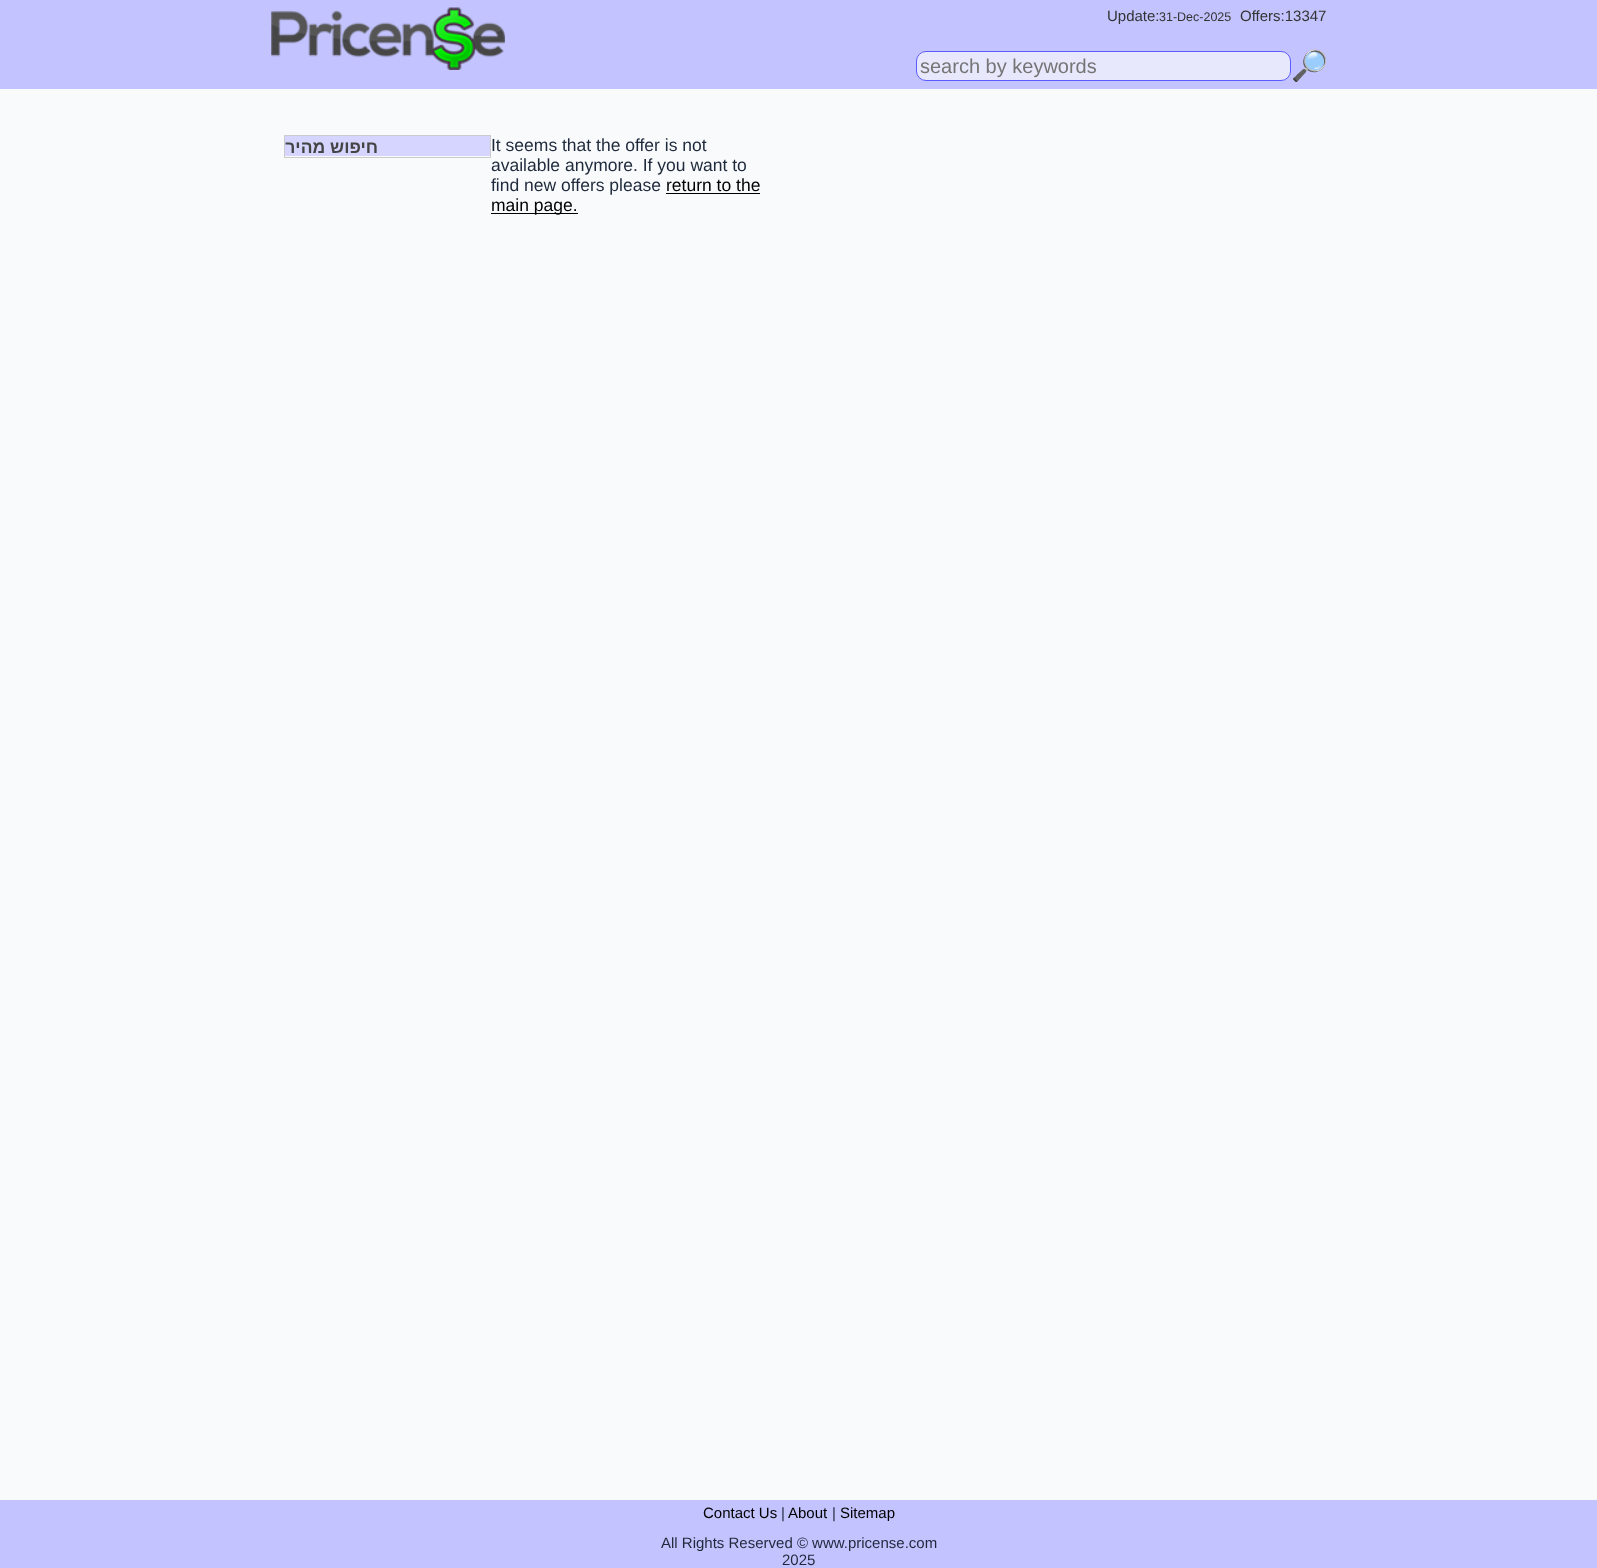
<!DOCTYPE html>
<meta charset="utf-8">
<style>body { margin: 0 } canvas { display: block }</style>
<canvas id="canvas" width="1597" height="1568"></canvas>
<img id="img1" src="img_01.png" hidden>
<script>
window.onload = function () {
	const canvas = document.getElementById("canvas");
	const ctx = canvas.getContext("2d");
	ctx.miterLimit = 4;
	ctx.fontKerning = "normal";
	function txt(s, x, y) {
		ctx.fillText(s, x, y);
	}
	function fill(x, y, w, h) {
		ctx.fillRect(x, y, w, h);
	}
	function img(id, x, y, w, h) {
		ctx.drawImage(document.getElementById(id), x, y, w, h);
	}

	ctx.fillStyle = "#F8FAFC";
	fill(0, 0, 1597, 1568);
	ctx.fillStyle = "#C3C3FF";
	fill(0, 0, 1597, 89);
	img("img1", 271, 7, 234, 63);
	ctx.fillStyle = "#E8E8FD";
	ctx.beginPath();
	ctx.roundRect(916.5, 51.5, 374, 29, 9.5);
	ctx.fill();
	ctx.strokeStyle = "#5B5BFF";
	ctx.stroke();
	ctx.strokeStyle = "#CCCCCC";
	ctx.strokeRect(284.5, 135.5, 206, 22);
	ctx.fillStyle = "#D5D5FF";
	fill(285, 136, 205, 20);
	ctx.fillStyle = "#000000";
	fill(666, 193, 94, 1);
	fill(491, 213, 87, 1);
	ctx.fillStyle = "#C3C3FF";
	fill(0, 1500, 1597, 68);
	ctx.font = "15px Liberation Sans";
	ctx.fillStyle = "#333333";
	txt("Update:", 1107, 21);
	ctx.font = "12.5px Liberation Sans";
	txt("31-Dec-2025", 1159, 21);
	ctx.font = "15px Liberation Sans";
	txt("Offers:13347", 1240, 21);
	ctx.font = "20px Liberation Sans";
	ctx.fillStyle = "#757575";
	txt("search by keywords", 920, 73);
	ctx.font = "30px Noto Color Emoji";
	ctx.fillStyle = "#000000";
	txt("🔎", 1291, 76);
	ctx.direction = "rtl";
	ctx.font = "bold 17.5px Liberation Sans";
	ctx.fillStyle = "#444444";
	txt("חיפוש מהיר", 378, 153);
	ctx.direction = "ltr";
	ctx.font = "17.5px Liberation Sans";
	ctx.fillStyle = "#1E293B";
	txt("It seems that the offer is not", 491, 151);
	txt("available anymore. If you want to", 491, 171);
	txt("find new offers please", 491, 191);
	ctx.fillStyle = "#000000";
	txt("return to the", 666, 191);
	txt("main page.", 491, 211);
	ctx.font = "15px Liberation Sans";
	txt("Contact Us", 703, 1518);
	ctx.fillStyle = "#1E293B";
	txt("|", 781, 1518);
	ctx.fillStyle = "#000000";
	txt("About", 788, 1518);
	ctx.fillStyle = "#1E293B";
	txt("|", 832, 1518);
	ctx.fillStyle = "#000000";
	txt("Sitemap", 840, 1518);
	ctx.fillStyle = "#1E293B";
	txt("All Rights Reserved © www.pricense.com", 661, 1548);
	txt("2025", 782, 1565);
};
</script>
